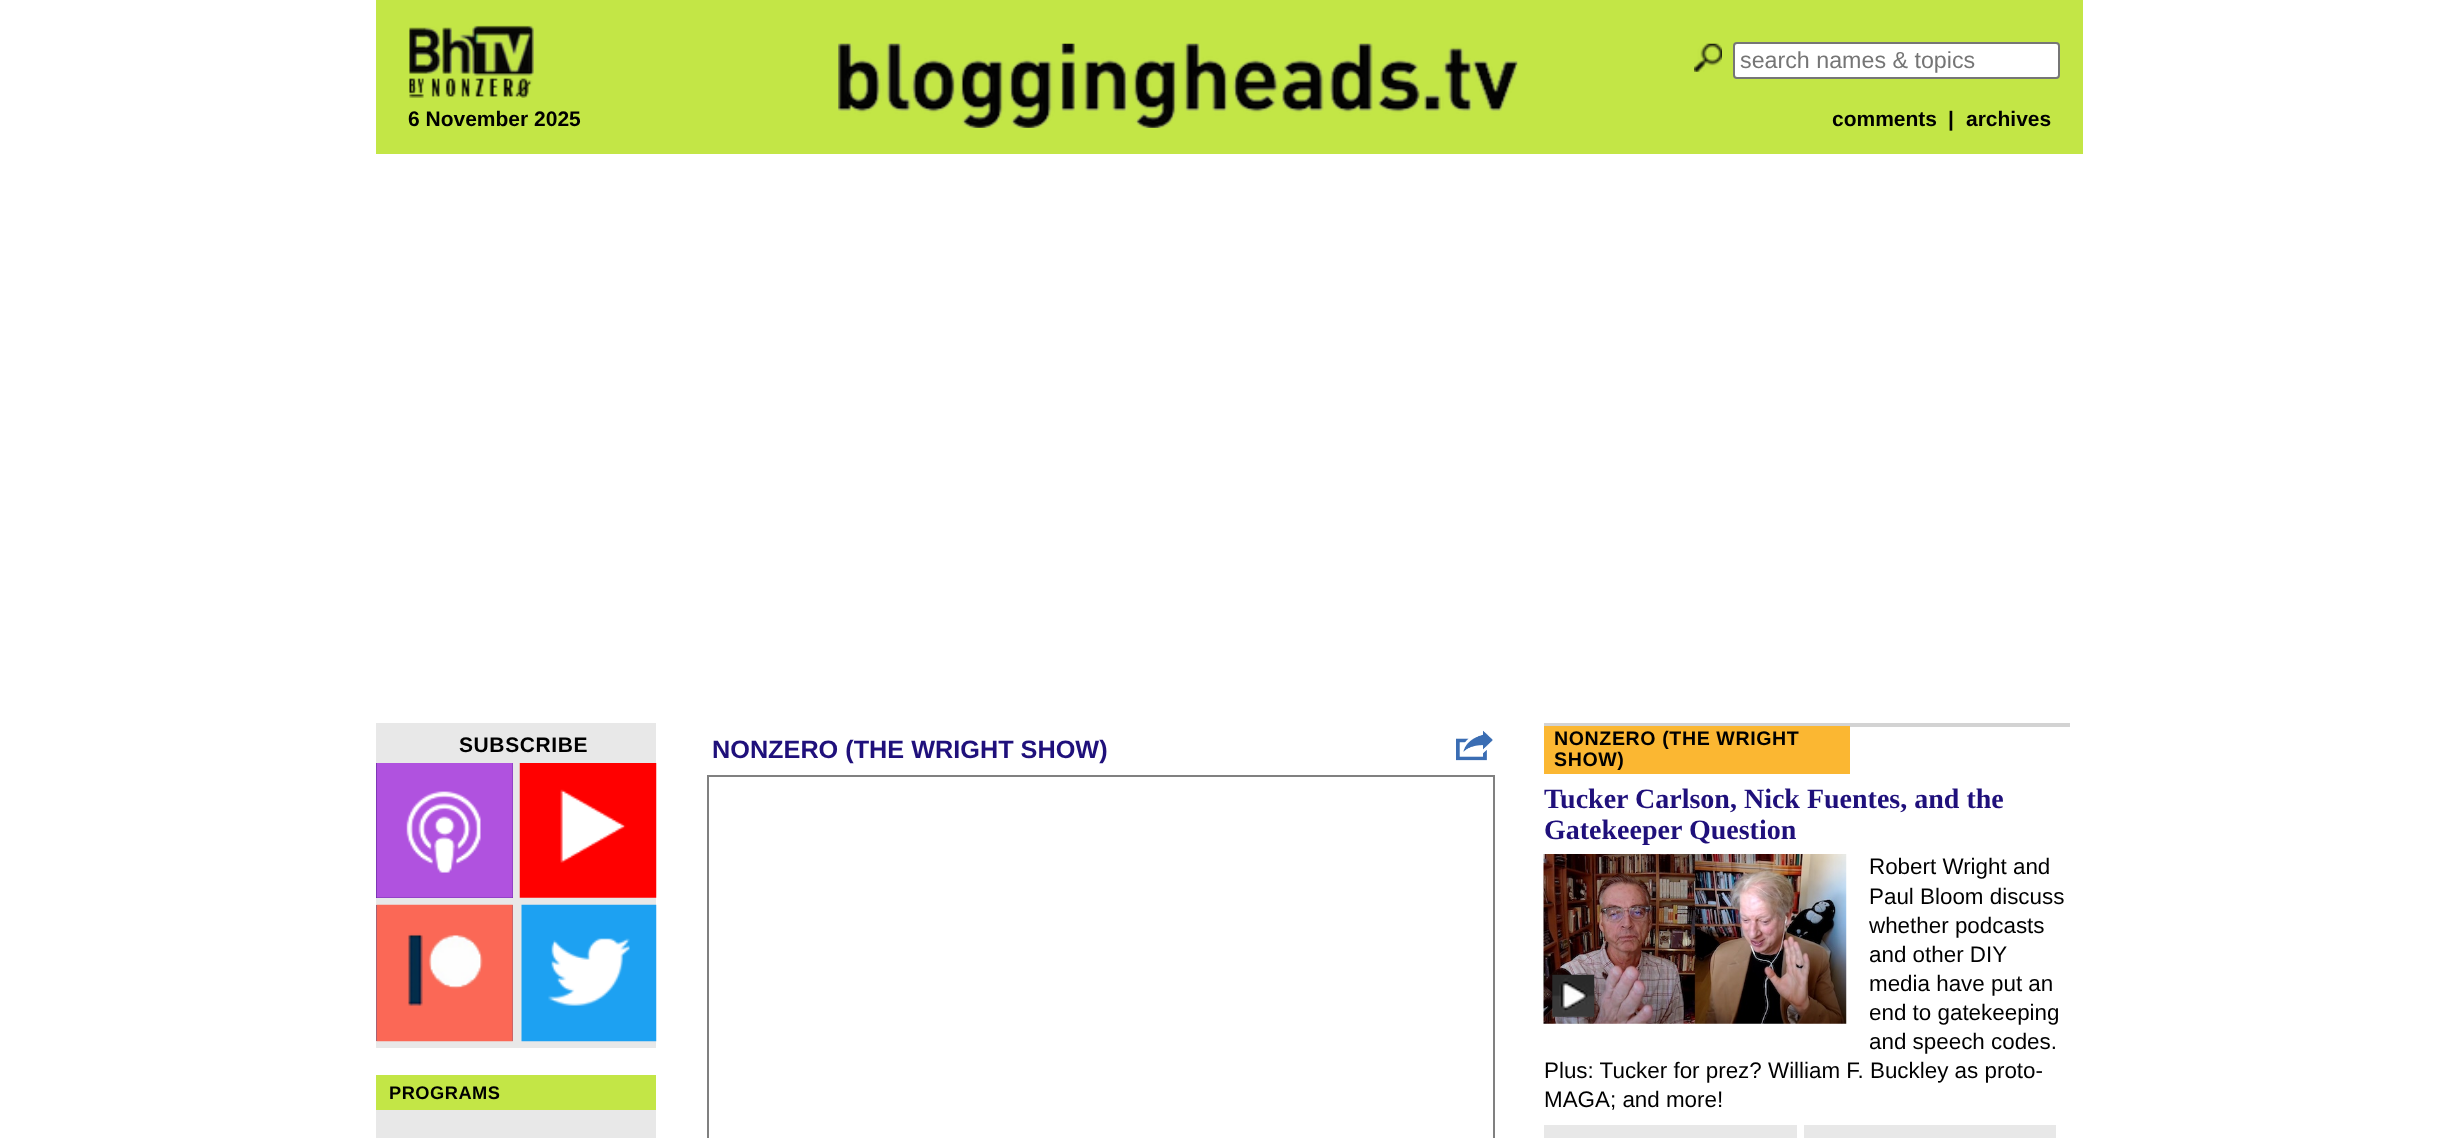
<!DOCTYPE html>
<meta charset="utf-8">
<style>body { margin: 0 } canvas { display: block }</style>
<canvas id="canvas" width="2458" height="1138"></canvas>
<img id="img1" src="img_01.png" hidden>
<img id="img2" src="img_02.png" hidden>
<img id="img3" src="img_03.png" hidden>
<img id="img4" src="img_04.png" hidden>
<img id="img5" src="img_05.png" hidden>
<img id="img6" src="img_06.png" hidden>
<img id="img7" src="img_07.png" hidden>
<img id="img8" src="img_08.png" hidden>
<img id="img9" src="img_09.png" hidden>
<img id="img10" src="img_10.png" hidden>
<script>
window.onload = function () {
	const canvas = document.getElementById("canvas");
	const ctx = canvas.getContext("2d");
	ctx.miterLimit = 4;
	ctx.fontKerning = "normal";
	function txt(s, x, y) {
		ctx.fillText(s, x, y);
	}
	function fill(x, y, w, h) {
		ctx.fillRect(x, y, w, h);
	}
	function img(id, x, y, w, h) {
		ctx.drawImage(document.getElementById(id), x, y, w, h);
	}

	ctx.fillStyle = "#FFFFFF";
	fill(0, 0, 2458, 1138);
	ctx.fillStyle = "#C3E646";
	fill(376, 0, 1707, 154);
	img("img1", 409, 25, 125, 73);
	img("img2", 838, 43, 680, 85);
	img("img3", 1694, 43, 28, 29);
	ctx.fillStyle = "#FFFFFF";
	ctx.beginPath();
	ctx.roundRect(1734, 43, 325, 35, 3);
	ctx.fill();
	ctx.strokeStyle = "#767676";
	ctx.lineWidth = 2;
	ctx.stroke();
	ctx.fillStyle = "#E8E8E8";
	fill(376, 723, 280, 325);
	ctx.fillStyle = "#3F1681";
	fill(376, 763, 137, 135);
	img("img4", 376, 763, 137, 135);
	img("img5", 519, 763, 138, 135);
	ctx.fillStyle = "#3B5998";
	fill(376, 905, 137, 136);
	img("img6", 376, 904, 137, 138);
	img("img7", 521, 904, 136, 138);
	ctx.fillStyle = "#E8E8E8";
	fill(376, 1110, 280, 28);
	ctx.fillStyle = "#C3E646";
	fill(376, 1075, 280, 35);
	img("img8", 1456, 730, 37, 31);
	ctx.strokeStyle = "#808080";
	ctx.strokeRect(708, 776, 786, 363);
	ctx.fillStyle = "#D3D3D3";
	fill(1544, 723, 526, 4);
	ctx.fillStyle = "#FBB732";
	fill(1544, 726, 306, 48);
	img("img9", 1543, 854, 304, 170);
	img("img10", 1552, 974, 43, 43);
	ctx.fillStyle = "#E8E8E8";
	fill(1544, 1125, 253, 13);
	fill(1804, 1125, 252, 13);
	ctx.font = "bold 21px Liberation Sans";
	ctx.fillStyle = "#000000";
	txt("6 November 2025", 408, 126);
	ctx.font = "23.25px Liberation Sans";
	ctx.fillStyle = "#757575";
	txt("search names & topics", 1740, 68);
	ctx.font = "bold 21px Liberation Sans";
	ctx.fillStyle = "#000000";
	txt("comments", 1832, 126);
	txt("|", 1948, 126);
	txt("archives", 1966, 126);
	ctx.letterSpacing = "0.6px";
	txt("SUBSCRIBE", 459, 752);
	ctx.letterSpacing = "0.5px";
	ctx.font = "bold 18.25px Liberation Sans";
	txt("PROGRAMS", 389, 1099);
	ctx.letterSpacing = "0px";
	ctx.font = "bold 25.25px Liberation Sans";
	ctx.fillStyle = "#1F107B";
	txt("NONZERO (THE WRIGHT SHOW)", 712, 758);
	ctx.letterSpacing = "0.6px";
	ctx.font = "bold 19.6px Liberation Sans";
	ctx.fillStyle = "#000000";
	txt("NONZERO (THE WRIGHT", 1554, 745);
	txt("SHOW)", 1554, 766);
	ctx.letterSpacing = "0px";
	ctx.font = "bold 28px Liberation Serif";
	ctx.fillStyle = "#1F107B";
	txt("Tucker Carlson, Nick Fuentes, and the", 1544, 808);
	txt("Gatekeeper Question", 1544, 839);
	ctx.font = "22.4px Liberation Sans";
	ctx.fillStyle = "#000000";
	txt("Robert Wright and", 1869, 874);
	txt("Paul Bloom discuss", 1869, 904);
	txt("whether podcasts", 1869, 933);
	txt("and other DIY", 1869, 962);
	txt("media have put an", 1869, 991);
	txt("end to gatekeeping", 1869, 1020);
	txt("and speech codes.", 1869, 1049);
	txt("Plus: Tucker for prez? William F. Buckley as proto-", 1544, 1078);
	txt("MAGA; and more!", 1544, 1107);
};
</script>
